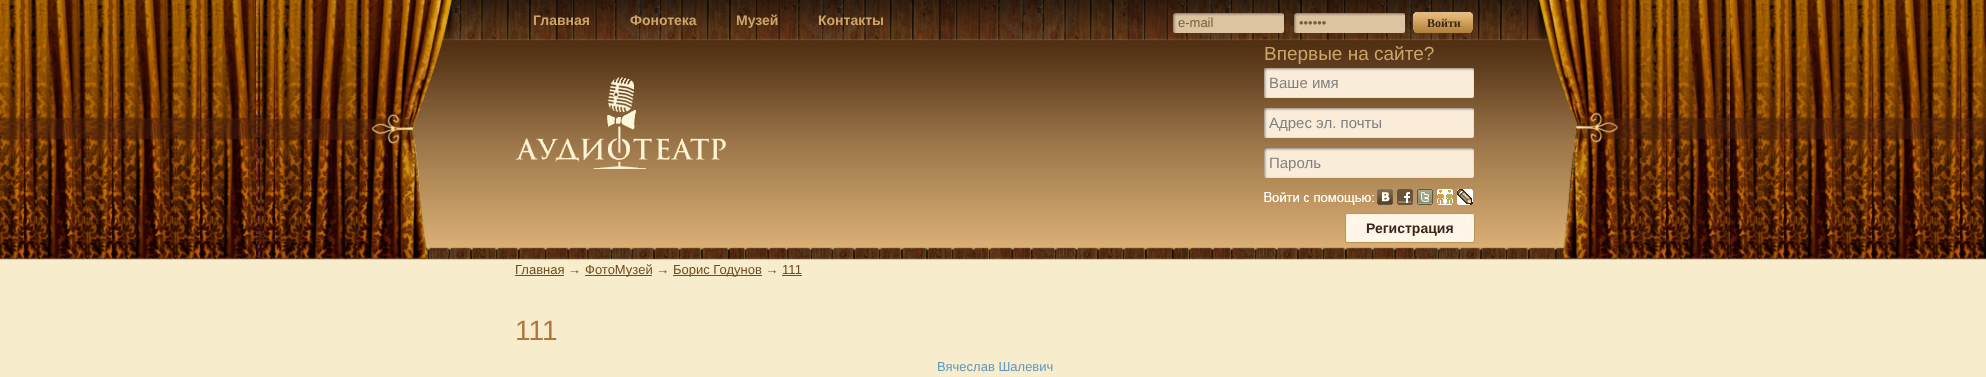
<!DOCTYPE html>
<meta charset="utf-8">
<style>body { margin: 0 } canvas { display: block }</style>
<canvas id="canvas" width="1986" height="377"></canvas>
<img id="img1" src="img_01.png" hidden>
<img id="img2" src="img_02.png" hidden>
<img id="img3" src="img_03.png" hidden>
<img id="img4" src="img_04.png" hidden>
<img id="img5" src="img_05.png" hidden>
<img id="img6" src="img_06.png" hidden>
<img id="img7" src="img_07.png" hidden>
<img id="img8" src="img_08.png" hidden>
<img id="img9" src="img_09.png" hidden>
<script>
window.onload = function () {
	const canvas = document.getElementById("canvas");
	const ctx = canvas.getContext("2d");
	ctx.miterLimit = 4;
	ctx.fontKerning = "normal";
	function txt(s, x, y) {
		ctx.fillText(s, x, y);
	}
	function fill(x, y, w, h) {
		ctx.fillRect(x, y, w, h);
	}
	function img(id, x, y, w, h) {
		ctx.drawImage(document.getElementById(id), x, y, w, h);
	}

	ctx.fillStyle = "#F7ECCC";
	fill(0, 0, 1986, 377);
	img("img1", 0, 0, 1986, 260);
	img("img2", 256, 0, 1474, 260);
	img("img3", 1173, 13, 111, 20);
	img("img4", 1294, 13, 111, 20);
	img("img5", 1413, 12, 60, 21);
	img("img6", 515, 77, 211, 92);
	img("img7", 1264, 68, 210, 30);
	img("img7", 1264, 108, 210, 30);
	img("img7", 1264, 148, 210, 30);
	img("img8", 1264, 189, 209, 16);
	img("img9", 1345, 213, 130, 30);
	ctx.fillStyle = "#724C1E";
	fill(515, 275, 49, 1);
	fill(585, 275, 67, 1);
	fill(673, 275, 89, 1);
	fill(782, 275, 20, 1);
	ctx.font = "bold 14px Liberation Sans";
	ctx.fillStyle = "#CDA568";
	txt("Главная", 533, 25);
	txt("Фонотека", 630, 25);
	txt("Музей", 736, 25);
	txt("Контакты", 818, 25);
	ctx.font = "13px Liberation Sans";
	ctx.fillStyle = "#795F3C";
	txt("e-mail", 1178, 27);
	txt("••••••", 1299, 27);
	ctx.font = "bold 12px Liberation Serif";
	ctx.fillStyle = "#3A2718";
	txt("Войти", 1427, 27);
	ctx.font = "19px Liberation Sans";
	ctx.fillStyle = "#CDA568";
	txt("Впервые на сайте?", 1264, 60);
	ctx.font = "15px Liberation Sans";
	ctx.fillStyle = "#808080";
	txt("Ваше имя", 1269, 88);
	ctx.save();
	ctx.beginPath();
	ctx.rect(1269, 114, 244, 17);
	ctx.clip();
	txt("Адрес эл. почты", 1269, 128);
	ctx.restore();
	txt("Пароль", 1269, 168);
	ctx.font = "bold 14px Liberation Sans";
	ctx.fillStyle = "#3A2718";
	txt("Регистрация", 1366, 233);
	ctx.font = "13px Liberation Sans";
	ctx.fillStyle = "#724C1E";
	txt("Главная →", 515, 274);
	txt("ФотоМузей →", 585, 274);
	txt("Борис Годунов → 111", 673, 274);
	ctx.font = "28px Liberation Sans";
	ctx.fillStyle = "#B4763D";
	txt("111", 515, 340);
	ctx.font = "13px Liberation Sans";
	ctx.fillStyle = "#5F98BF";
	txt("Вячеслав Шалевич", 937, 371);
};
</script>
